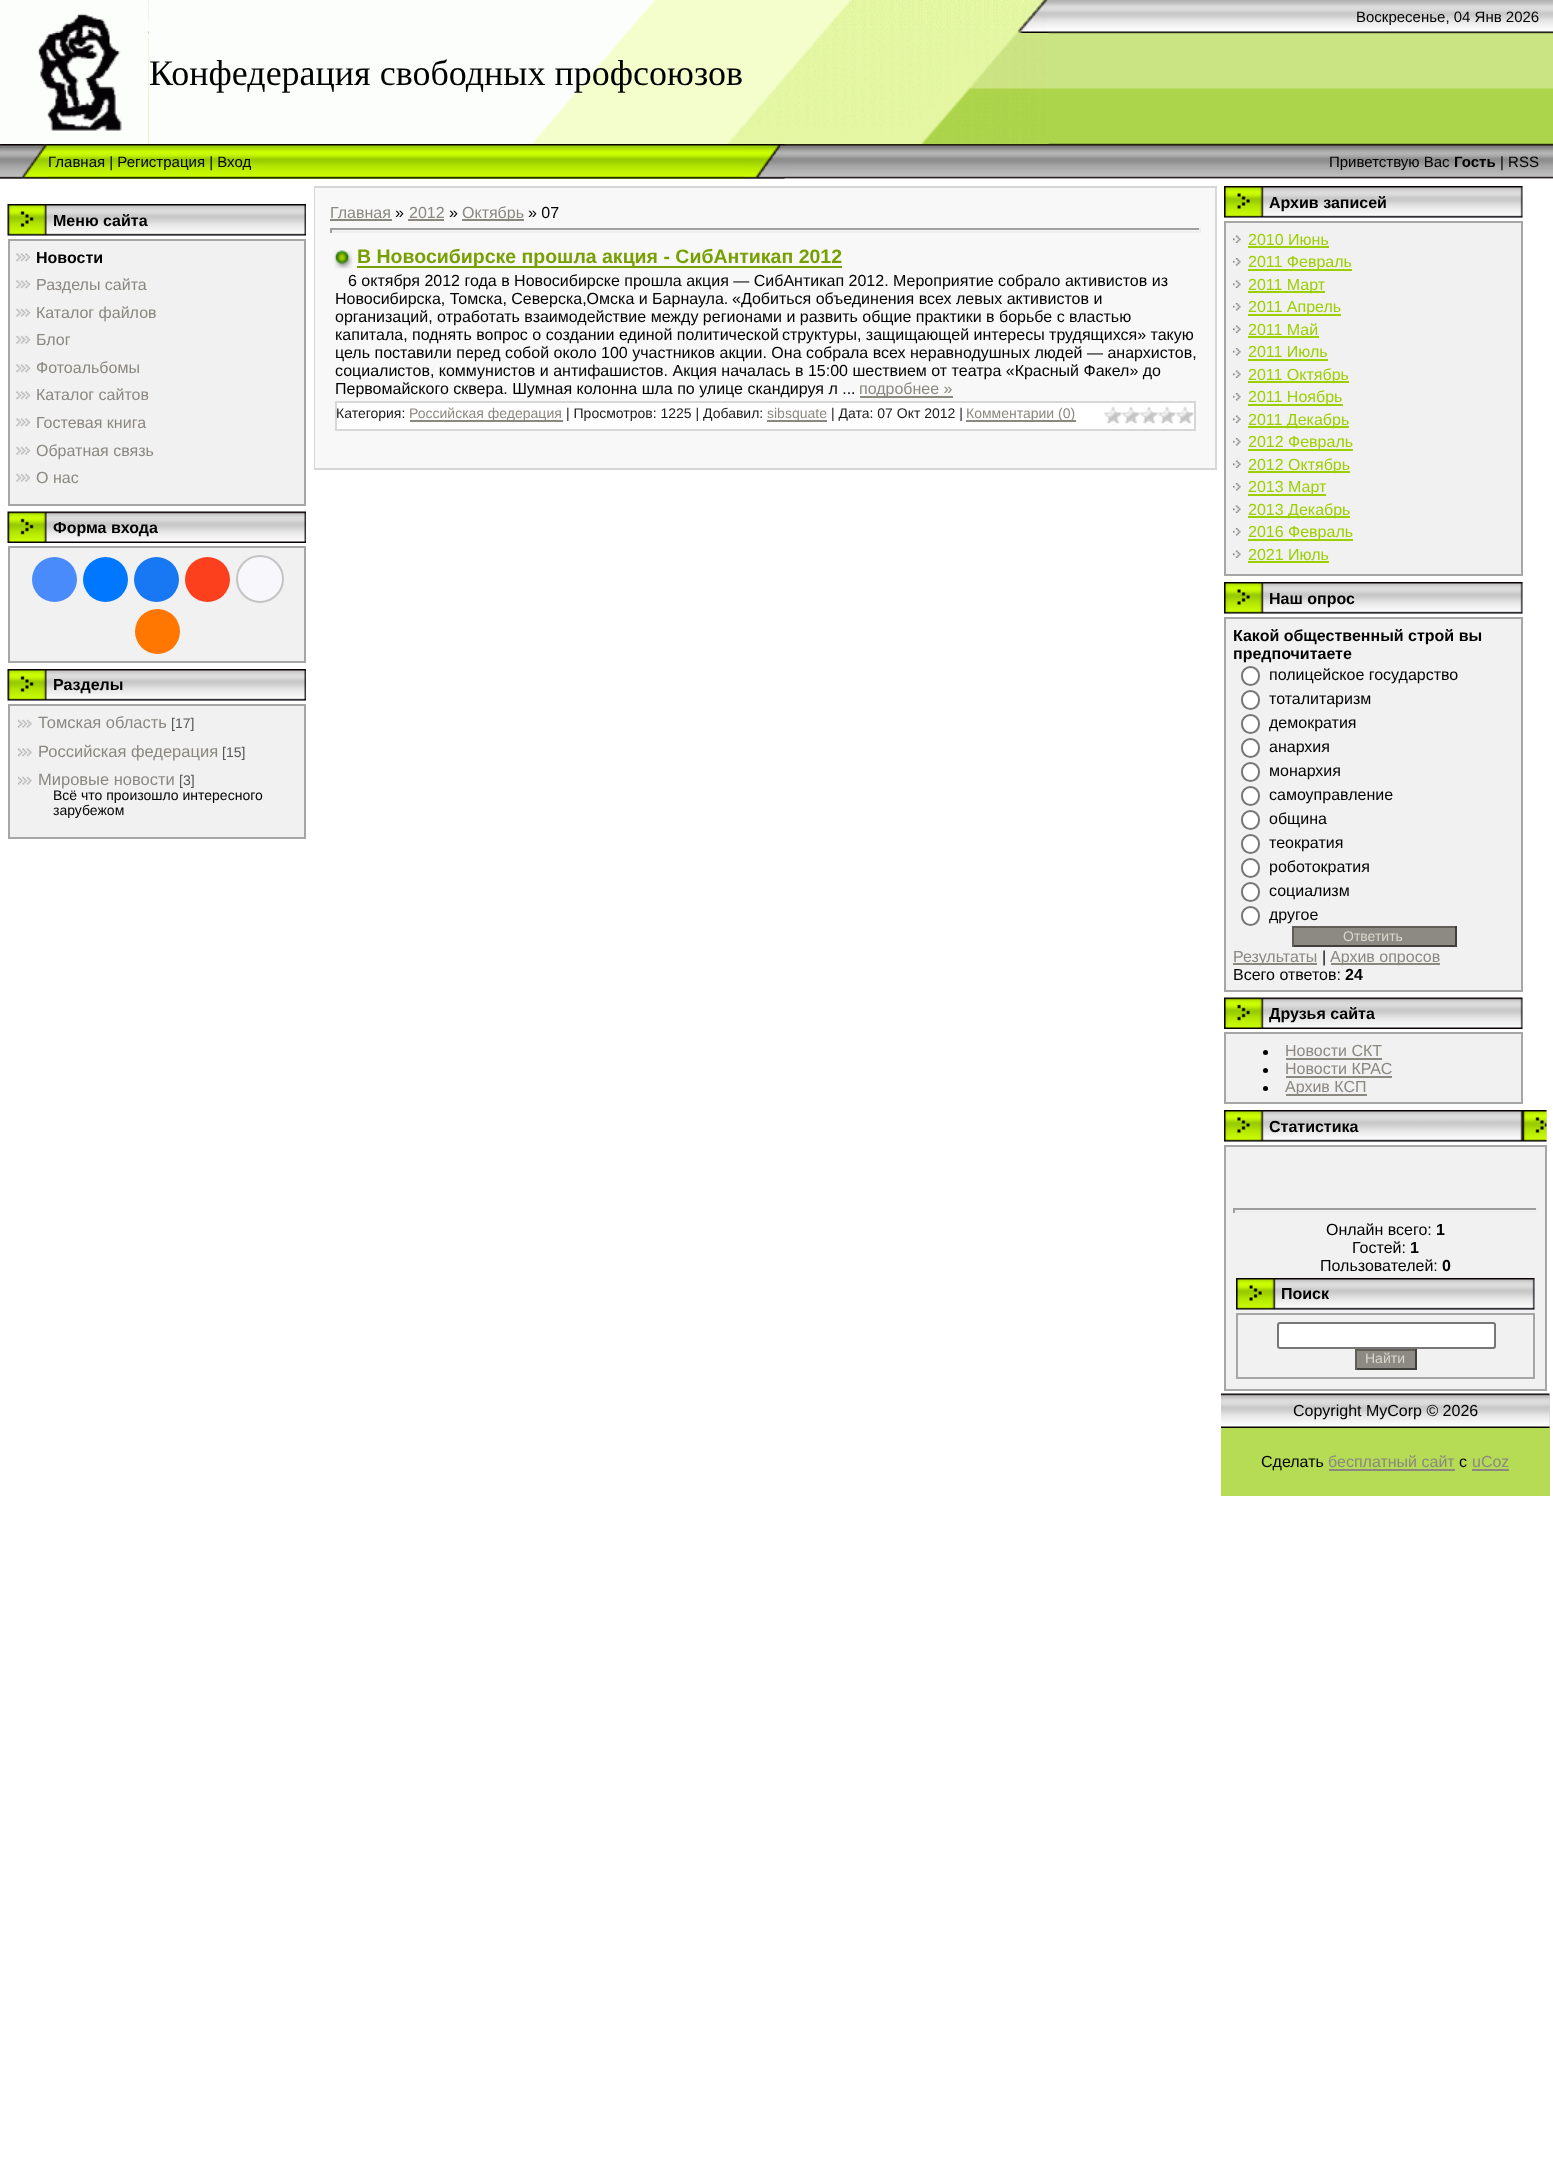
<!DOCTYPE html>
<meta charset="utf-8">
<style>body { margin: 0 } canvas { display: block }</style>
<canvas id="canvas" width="1553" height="2164"></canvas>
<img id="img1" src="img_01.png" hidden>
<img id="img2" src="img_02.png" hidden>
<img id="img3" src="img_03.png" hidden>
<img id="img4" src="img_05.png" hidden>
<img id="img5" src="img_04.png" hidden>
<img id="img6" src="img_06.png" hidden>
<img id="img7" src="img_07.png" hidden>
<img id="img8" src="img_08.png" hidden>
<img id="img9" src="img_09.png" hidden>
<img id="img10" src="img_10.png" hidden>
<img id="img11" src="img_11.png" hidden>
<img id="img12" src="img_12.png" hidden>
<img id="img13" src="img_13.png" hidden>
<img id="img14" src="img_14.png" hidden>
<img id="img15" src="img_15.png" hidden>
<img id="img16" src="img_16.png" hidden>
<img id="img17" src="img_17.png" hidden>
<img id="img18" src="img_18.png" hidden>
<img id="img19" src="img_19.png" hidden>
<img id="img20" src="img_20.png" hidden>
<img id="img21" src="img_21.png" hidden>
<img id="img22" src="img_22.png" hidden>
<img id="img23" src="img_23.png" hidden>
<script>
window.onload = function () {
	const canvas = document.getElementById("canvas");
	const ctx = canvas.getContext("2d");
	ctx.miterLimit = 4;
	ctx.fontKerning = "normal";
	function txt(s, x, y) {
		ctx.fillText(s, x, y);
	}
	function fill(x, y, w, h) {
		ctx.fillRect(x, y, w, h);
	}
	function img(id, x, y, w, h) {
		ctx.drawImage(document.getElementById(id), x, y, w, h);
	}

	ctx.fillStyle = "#FFFFFF";
	fill(0, 0, 1553, 2164);
	img("img1", 0, 0, 1553, 179);
	img("img2", 0, 0, 149, 33);
	img("img3", 148, 0, 901, 33);
	img("img4", 148, 33, 901, 111);
	img("img5", 0, 33, 149, 111);
	img("img6", 0, 144, 48, 35);
	ctx.fillStyle = "#B0E300";
	fill(48, 178, 696, 1);
	img("img7", 48, 144, 696, 35);
	img("img8", 744, 144, 41, 35);
	ctx.fillStyle = "#D4DFF7";
	fill(8, 235, 298, 1);
	img("img9", 7, 204, 299, 32);
	ctx.fillStyle = "#F1F1F1";
	ctx.beginPath();
	ctx.rect(9, 240, 296, 265);
	ctx.fill();
	ctx.strokeStyle = "#A7A6A6";
	ctx.lineWidth = 2;
	ctx.stroke();
	img("img10", 16, 253, 14, 9);
	img("img10", 16, 280, 14, 9);
	img("img11", 16, 308, 14, 9);
	img("img11", 16, 335, 14, 9);
	img("img10", 16, 364, 14, 9);
	img("img10", 16, 391, 14, 9);
	img("img10", 16, 418, 14, 9);
	img("img11", 16, 446, 14, 9);
	img("img11", 16, 473, 14, 9);
	img("img12", 7, 511, 299, 32);
	ctx.beginPath();
	ctx.rect(9, 547, 296, 115);
	ctx.fill();
	ctx.stroke();
	ctx.fillStyle = "#498BFA";
	ctx.beginPath();
	ctx.arc(54.5, 579.5, 22.5, 0, Math.PI * 2);
	ctx.fill();
	ctx.fillStyle = "#0077FF";
	ctx.beginPath();
	ctx.arc(105.5, 579.5, 22.5, 0, Math.PI * 2);
	ctx.fill();
	ctx.fillStyle = "#1877F2";
	ctx.beginPath();
	ctx.arc(156.5, 579.5, 22.5, 0, Math.PI * 2);
	ctx.fill();
	ctx.fillStyle = "#FC3F1D";
	ctx.beginPath();
	ctx.arc(207.5, 579.5, 22.5, 0, Math.PI * 2);
	ctx.fill();
	ctx.fillStyle = "#F8F8FC";
	ctx.beginPath();
	ctx.arc(260, 579, 23, 0, Math.PI * 2);
	ctx.fill();
	ctx.strokeStyle = "#C4C4C4";
	ctx.stroke();
	ctx.fillStyle = "#FF7700";
	ctx.beginPath();
	ctx.arc(157.5, 631.5, 22.5, 0, Math.PI * 2);
	ctx.fill();
	ctx.fillStyle = "#D4DFF7";
	fill(8, 700, 298, 1);
	img("img9", 7, 669, 299, 32);
	ctx.fillStyle = "#F1F1F1";
	ctx.beginPath();
	ctx.rect(9, 705, 296, 133);
	ctx.fill();
	ctx.strokeStyle = "#A7A6A6";
	ctx.stroke();
	img("img13", 18, 719, 14, 9);
	img("img14", 18, 748, 14, 9);
	img("img13", 18, 776, 14, 9);
	ctx.strokeStyle = "#D7D7D7";
	ctx.strokeRect(315, 187, 901, 282);
	ctx.fillStyle = "#F8F8F8";
	fill(315, 188, 900, 280);
	ctx.fillStyle = "#8B8881";
	fill(330, 219, 62, 2);
	fill(408, 219, 36, 2);
	fill(462, 219, 62, 2);
	ctx.fillStyle = "#9F9F9F";
	fill(330, 228, 870, 2);
	ctx.fillStyle = "#EEEEEE";
	fill(1199, 228, 2, 5);
	fill(330, 231, 870, 2);
	ctx.fillStyle = "#9F9F9F";
	fill(330, 228, 2, 5);
	img("img15", 334, 250, 19, 19);
	ctx.fillStyle = "#779F00";
	fill(357, 266, 485, 2);
	ctx.fillStyle = "#8B8881";
	fill(860, 396, 93, 2);
	ctx.fillStyle = "#FFFFFF";
	ctx.beginPath();
	ctx.rect(336, 402, 859, 28);
	ctx.fill();
	ctx.stroke();
	ctx.fillStyle = "#8B8881";
	fill(410, 420, 153, 2);
	fill(767, 420, 60, 2);
	fill(966, 420, 110, 2);
	img("img16", 1104, 406, 90, 19);
	ctx.fillStyle = "#D4DFF7";
	fill(1224, 186, 299, 32);
	img("img17", 1224, 186, 299, 32);
	ctx.fillStyle = "#F1F1F1";
	ctx.beginPath();
	ctx.rect(1225, 222, 297, 353);
	ctx.fill();
	ctx.strokeStyle = "#A7A6A6";
	ctx.stroke();
	img("img18", 1233, 235, 8, 8);
	ctx.fillStyle = "#9CCF00";
	fill(1248, 246, 81, 2);
	img("img19", 1233, 258, 8, 8);
	fill(1248, 269, 104, 2);
	img("img18", 1233, 280, 8, 8);
	fill(1248, 291, 77, 2);
	img("img19", 1233, 303, 8, 8);
	fill(1248, 314, 93, 2);
	img("img18", 1233, 325, 8, 8);
	fill(1248, 336, 71, 2);
	img("img19", 1233, 348, 8, 8);
	fill(1248, 359, 80, 2);
	img("img18", 1233, 370, 8, 8);
	fill(1248, 381, 101, 2);
	img("img19", 1233, 393, 8, 8);
	fill(1248, 404, 95, 2);
	img("img18", 1233, 415, 8, 8);
	fill(1248, 426, 101, 2);
	img("img19", 1233, 438, 8, 8);
	fill(1248, 449, 105, 2);
	img("img18", 1233, 460, 8, 8);
	fill(1248, 471, 102, 2);
	img("img19", 1233, 483, 8, 8);
	fill(1248, 494, 78, 2);
	img("img18", 1233, 505, 8, 8);
	fill(1248, 516, 102, 2);
	img("img19", 1233, 528, 8, 8);
	fill(1248, 539, 105, 2);
	img("img18", 1233, 550, 8, 8);
	fill(1248, 561, 81, 2);
	ctx.fillStyle = "#D4DFF7";
	fill(1224, 582, 299, 32);
	img("img17", 1224, 582, 299, 32);
	ctx.fillStyle = "#F1F1F1";
	ctx.beginPath();
	ctx.rect(1225, 618, 297, 373);
	ctx.fill();
	ctx.stroke();
	ctx.fillStyle = "#FFFFFF";
	ctx.beginPath();
	ctx.roundRect(1242, 667, 17, 18, 8.5);
	ctx.fill();
	ctx.strokeStyle = "#767676";
	ctx.stroke();
	ctx.beginPath();
	ctx.roundRect(1242, 691, 17, 18, 8.5);
	ctx.fill();
	ctx.stroke();
	ctx.beginPath();
	ctx.roundRect(1242, 715, 17, 18, 8.5);
	ctx.fill();
	ctx.stroke();
	ctx.beginPath();
	ctx.roundRect(1242, 739, 17, 18, 8.5);
	ctx.fill();
	ctx.stroke();
	ctx.beginPath();
	ctx.roundRect(1242, 763, 17, 18, 8.5);
	ctx.fill();
	ctx.stroke();
	ctx.beginPath();
	ctx.roundRect(1242, 787, 17, 18, 8.5);
	ctx.fill();
	ctx.stroke();
	ctx.beginPath();
	ctx.roundRect(1242, 811, 17, 18, 8.5);
	ctx.fill();
	ctx.stroke();
	ctx.beginPath();
	ctx.roundRect(1242, 835, 17, 18, 8.5);
	ctx.fill();
	ctx.stroke();
	ctx.beginPath();
	ctx.roundRect(1242, 859, 17, 18, 8.5);
	ctx.fill();
	ctx.stroke();
	ctx.beginPath();
	ctx.roundRect(1242, 883, 17, 18, 8.5);
	ctx.fill();
	ctx.stroke();
	ctx.beginPath();
	ctx.roundRect(1242, 907, 17, 18, 8.5);
	ctx.fill();
	ctx.stroke();
	ctx.fillStyle = "#8D8A83";
	fill(1294, 928, 161, 17);
	ctx.fillStyle = "#615E58";
	fill(1292, 926, 165, 2);
	ctx.fillStyle = "#413F3B";
	fill(1455, 926, 2, 21);
	fill(1292, 945, 165, 2);
	ctx.fillStyle = "#615E58";
	fill(1292, 926, 2, 21);
	ctx.fillStyle = "#8B8881";
	fill(1233, 963, 84, 2);
	fill(1331, 963, 109, 2);
	ctx.fillStyle = "#D4DFF7";
	fill(1522, 998, 1, 31);
	img("img20", 1224, 997, 299, 32);
	ctx.fillStyle = "#F1F1F1";
	ctx.beginPath();
	ctx.rect(1225, 1033, 297, 70);
	ctx.fill();
	ctx.strokeStyle = "#A7A6A6";
	ctx.stroke();
	ctx.fillStyle = "#000000";
	ctx.beginPath();
	ctx.arc(1265.5, 1052.5, 2.5, 0, Math.PI * 2);
	ctx.fill();
	ctx.fillStyle = "#8B8881";
	fill(1286, 1058, 96, 2);
	ctx.fillStyle = "#000000";
	ctx.beginPath();
	ctx.arc(1265.5, 1070.5, 2.5, 0, Math.PI * 2);
	ctx.fill();
	ctx.fillStyle = "#8B8881";
	fill(1286, 1076, 106, 2);
	ctx.fillStyle = "#000000";
	ctx.beginPath();
	ctx.arc(1265.5, 1088.5, 2.5, 0, Math.PI * 2);
	ctx.fill();
	ctx.fillStyle = "#8B8881";
	fill(1286, 1094, 81, 2);
	ctx.fillStyle = "#D4DFF7";
	fill(1224, 1110, 323, 32);
	img("img21", 1224, 1110, 323, 32);
	ctx.fillStyle = "#F1F1F1";
	ctx.beginPath();
	ctx.rect(1225, 1146, 321, 244);
	ctx.fill();
	ctx.stroke();
	ctx.fillStyle = "#9F9F9F";
	fill(1233, 1208, 305, 2);
	ctx.fillStyle = "#EEEEEE";
	fill(1536, 1208, 2, 5);
	fill(1233, 1211, 305, 2);
	ctx.fillStyle = "#9F9F9F";
	fill(1233, 1208, 2, 5);
	ctx.fillStyle = "#D4DFF7";
	fill(1236, 1278, 299, 32);
	img("img22", 1236, 1278, 299, 32);
	ctx.strokeRect(1237, 1314, 297, 64);
	ctx.fillStyle = "#FFFFFF";
	ctx.beginPath();
	ctx.roundRect(1278, 1323, 217, 25, 2);
	ctx.fill();
	ctx.strokeStyle = "#767676";
	ctx.stroke();
	ctx.fillStyle = "#8D8A83";
	fill(1357, 1351, 58, 17);
	ctx.fillStyle = "#615E58";
	fill(1355, 1349, 61, 2);
	ctx.fillStyle = "#413F3B";
	fill(1415, 1349, 2, 21);
	fill(1355, 1368, 61, 2);
	ctx.fillStyle = "#615E58";
	fill(1355, 1349, 2, 21);
	ctx.fillStyle = "#CCCCCC";
	fill(1549, 1394, 1, 34);
	img("img23", 1221, 1393, 329, 35);
	ctx.fillStyle = "#B5DC54";
	fill(1221, 1428, 329, 68);
	ctx.fillStyle = "#8B8881";
	fill(1329, 1469, 126, 2);
	fill(1472, 1469, 37, 2);
	ctx.font = "15px Liberation Sans";
	ctx.fillStyle = "#000000";
	txt("Воскресенье, 04 Янв 2026", 1356, 22);
	ctx.font = "36px Liberation Serif";
	txt("Конфедерация свободных профсоюзов", 149, 85);
	ctx.font = "15px Liberation Sans";
	txt("Главная | Регистрация | Вход", 48, 167);
	txt("Приветствую Вас", 1329, 167);
	ctx.font = "bold 15px Liberation Sans";
	txt("Гость", 1454, 167);
	ctx.font = "15px Liberation Sans";
	txt("| RSS", 1500, 167);
	ctx.font = "bold 16px Liberation Sans";
	txt("Меню сайта", 53, 226);
	txt("Новости", 36, 263);
	ctx.font = "16px Liberation Sans";
	ctx.fillStyle = "#8B8881";
	txt("Разделы сайта", 36, 290);
	txt("Каталог файлов", 36, 318);
	txt("Блог", 36, 345);
	txt("Фотоальбомы", 36, 373);
	txt("Каталог сайтов", 36, 400);
	txt("Гостевая книга", 36, 428);
	txt("Обратная связь", 36, 456);
	txt("О нас", 36, 483);
	ctx.font = "bold 16px Liberation Sans";
	ctx.fillStyle = "#000000";
	txt("Форма входа", 53, 533);
	txt("Разделы", 53, 690);
	ctx.font = "16.5px Liberation Sans";
	ctx.fillStyle = "#8B8881";
	txt("Томская область", 38, 728);
	ctx.font = "14px Liberation Sans";
	ctx.fillStyle = "#555555";
	txt("[17]", 171, 728);
	ctx.font = "16.5px Liberation Sans";
	ctx.fillStyle = "#8B8881";
	txt("Российская федерация", 38, 757);
	ctx.font = "14px Liberation Sans";
	ctx.fillStyle = "#555555";
	txt("[15]", 222, 757);
	ctx.font = "16.5px Liberation Sans";
	ctx.fillStyle = "#8B8881";
	txt("Мировые новости", 38, 785);
	ctx.font = "14px Liberation Sans";
	ctx.fillStyle = "#555555";
	txt("[3]", 179, 785);
	ctx.fillStyle = "#000000";
	txt("Всё что произошло интересного", 53, 800);
	txt("зарубежом", 53, 815);
	ctx.font = "16px Liberation Sans";
	ctx.fillStyle = "#8B8881";
	txt("Главная", 330, 218);
	ctx.fillStyle = "#000000";
	txt("»", 395, 218);
	ctx.fillStyle = "#8B8881";
	txt("2012", 409, 218);
	ctx.fillStyle = "#000000";
	txt("»", 449, 218);
	ctx.fillStyle = "#8B8881";
	txt("Октябрь", 462, 218);
	ctx.fillStyle = "#000000";
	txt("» 07", 528, 218);
	ctx.font = "bold 19.5px Liberation Sans";
	ctx.fillStyle = "#779F00";
	txt("В Новосибирске прошла акция - СибАнтикап 2012", 357, 263);
	ctx.font = "16px Liberation Sans";
	ctx.fillStyle = "#000000";
	txt("6 октября 2012 года в Новосибирске прошла акция — СибАнтикап 2012. Мероприятие собрало активистов из", 348, 286);
	txt("Новосибирска, Томска, Северска,Омска и Барнаула.", 335, 304);
	txt("«Добиться объединения всех левых активистов и", 732, 304);
	txt("организаций, отработать взаимодействие между регионами и развить общие практики в борьбе с властью", 335, 322);
	txt("капитала, поднять вопрос о создании единой политической", 335, 340);
	txt("структуры, защищающей интересы трудящихся» такую", 782, 340);
	txt("цель поставили перед собой около 100 участников акции. Она собрала всех неравнодушных людей — анархистов,", 335, 358);
	txt("социалистов, коммунистов и антифашистов. Акция началась в 15:00 шествием от театра «Красный Факел» до", 335, 376);
	txt("Первомайского сквера. Шумная колонна шла по улице скандируя л ...", 335, 394);
	ctx.fillStyle = "#8B8881";
	txt("подробнее »", 859, 394);
	ctx.font = "14px Liberation Sans";
	ctx.fillStyle = "#1A1A1A";
	txt("Категория:", 336, 418);
	ctx.fillStyle = "#8B8881";
	txt("Российская федерация", 409, 418);
	ctx.fillStyle = "#1A1A1A";
	txt("| Просмотров: 1225 | Добавил:", 566, 418);
	ctx.fillStyle = "#8B8881";
	txt("sibsquate", 767, 418);
	ctx.fillStyle = "#1A1A1A";
	txt("| Дата: 07 Окт 2012 |", 831, 418);
	ctx.fillStyle = "#8B8881";
	txt("Комментарии (0)", 966, 418);
	ctx.font = "bold 16px Liberation Sans";
	ctx.fillStyle = "#000000";
	txt("Архив записей", 1269, 208);
	ctx.font = "16px Liberation Sans";
	ctx.fillStyle = "#9CCF00";
	txt("2010 Июнь", 1248, 245);
	txt("2011 Февраль", 1248, 267);
	txt("2011 Март", 1248, 290);
	txt("2011 Апрель", 1248, 312);
	txt("2011 Май", 1248, 335);
	txt("2011 Июль", 1248, 357);
	txt("2011 Октябрь", 1248, 380);
	txt("2011 Ноябрь", 1248, 402);
	txt("2011 Декабрь", 1248, 425);
	txt("2012 Февраль", 1248, 447);
	txt("2012 Октябрь", 1248, 470);
	txt("2013 Март", 1248, 492);
	txt("2013 Декабрь", 1248, 515);
	txt("2016 Февраль", 1248, 537);
	txt("2021 Июль", 1248, 560);
	ctx.font = "bold 16px Liberation Sans";
	ctx.fillStyle = "#000000";
	txt("Наш опрос", 1269, 604);
	txt("Какой общественный строй вы", 1233, 641);
	txt("предпочитаете", 1233, 659);
	ctx.font = "16px Liberation Sans";
	txt("полицейское государство", 1269, 680);
	txt("тоталитаризм", 1269, 704);
	txt("демократия", 1269, 728);
	txt("анархия", 1269, 752);
	txt("монархия", 1269, 776);
	txt("самоуправление", 1269, 800);
	txt("община", 1269, 824);
	txt("теократия", 1269, 848);
	txt("роботократия", 1269, 872);
	txt("социализм", 1269, 896);
	txt("другое", 1269, 920);
	ctx.font = "14px Liberation Sans";
	ctx.fillStyle = "#DAD7CC";
	txt("Ответить", 1343, 941);
	ctx.font = "16px Liberation Sans";
	ctx.fillStyle = "#8B8881";
	txt("Результаты", 1233, 962);
	ctx.fillStyle = "#000000";
	txt("|", 1322, 962);
	ctx.fillStyle = "#8B8881";
	txt("Архив опросов", 1330, 962);
	ctx.fillStyle = "#000000";
	txt("Всего ответов:", 1233, 980);
	ctx.font = "bold 16px Liberation Sans";
	txt("24", 1345, 980);
	txt("Друзья сайта", 1269, 1019);
	ctx.font = "16px Liberation Sans";
	ctx.fillStyle = "#8B8881";
	txt("Новости СКТ", 1285, 1056);
	txt("Новости КРАС", 1285, 1074);
	txt("Архив КСП", 1285, 1092);
	ctx.font = "bold 16px Liberation Sans";
	ctx.fillStyle = "#000000";
	txt("Статистика", 1269, 1132);
	ctx.font = "16px Liberation Sans";
	txt("Онлайн всего:", 1326, 1235);
	ctx.font = "bold 16px Liberation Sans";
	txt("1", 1436, 1235);
	ctx.font = "16px Liberation Sans";
	txt("Гостей:", 1352, 1253);
	ctx.font = "bold 16px Liberation Sans";
	txt("1", 1410, 1253);
	ctx.font = "16px Liberation Sans";
	txt("Пользователей:", 1320, 1271);
	ctx.font = "bold 16px Liberation Sans";
	txt("0", 1442, 1271);
	txt("Поиск", 1281, 1299);
	ctx.font = "14px Liberation Sans";
	ctx.fillStyle = "#DAD7CC";
	txt("Найти", 1365, 1363);
	ctx.font = "16px Liberation Sans";
	ctx.fillStyle = "#000000";
	txt("Copyright MyCorp © 2026", 1293, 1416);
	txt("Сделать", 1261, 1467);
	ctx.fillStyle = "#8B8881";
	txt("бесплатный сайт", 1328, 1467);
	ctx.fillStyle = "#000000";
	txt("с", 1459, 1467);
	ctx.fillStyle = "#8B8881";
	txt("uCoz", 1472, 1467);
};
</script>
